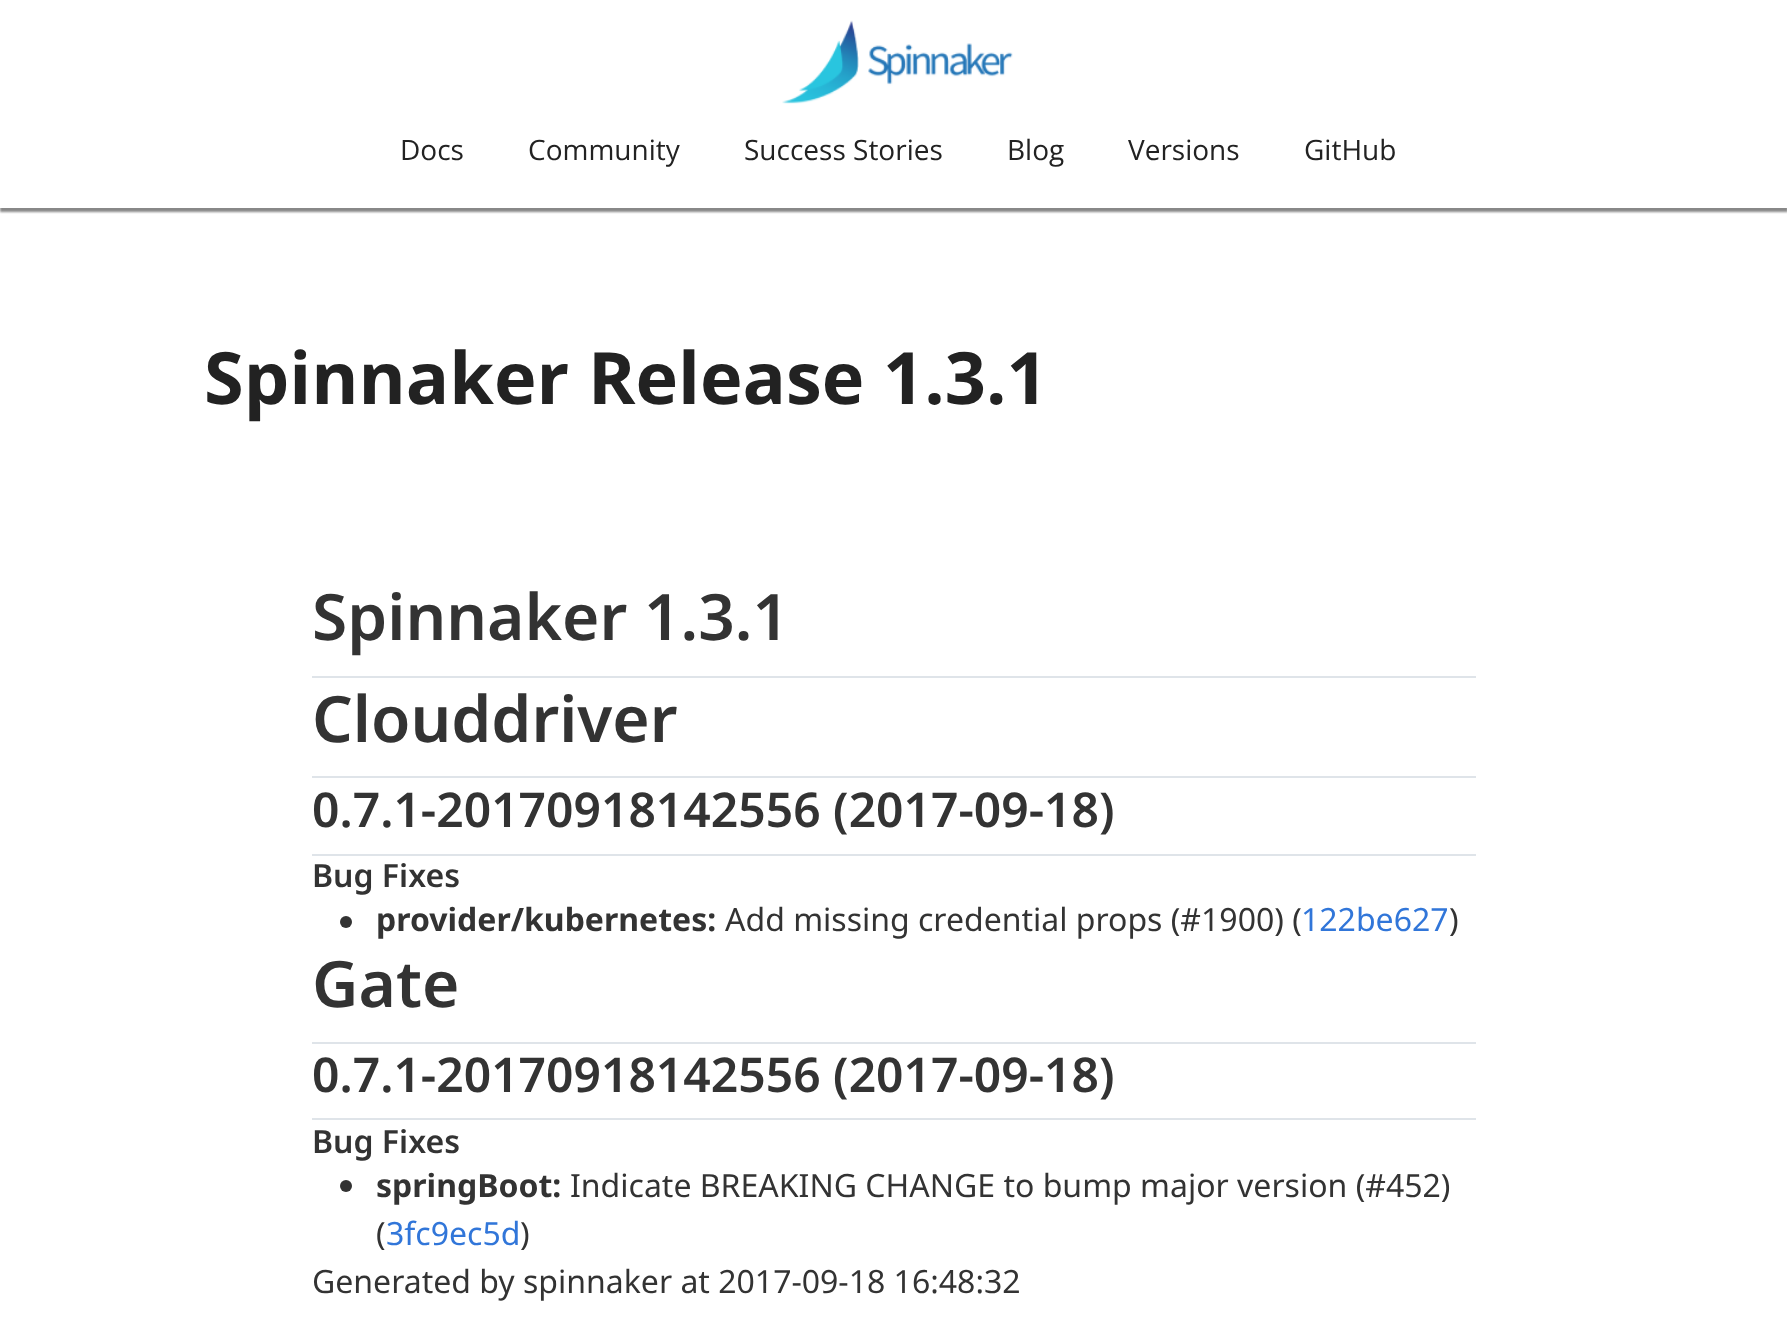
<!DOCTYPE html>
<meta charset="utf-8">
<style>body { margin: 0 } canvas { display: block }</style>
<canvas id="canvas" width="1787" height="1327"></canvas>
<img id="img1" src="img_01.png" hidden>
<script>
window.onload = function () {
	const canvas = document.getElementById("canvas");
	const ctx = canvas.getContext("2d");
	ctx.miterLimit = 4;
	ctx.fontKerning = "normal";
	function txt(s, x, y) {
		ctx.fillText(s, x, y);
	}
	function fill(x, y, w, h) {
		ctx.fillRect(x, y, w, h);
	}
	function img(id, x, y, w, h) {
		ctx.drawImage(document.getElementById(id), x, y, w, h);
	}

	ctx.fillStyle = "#FFFFFF";
	fill(0, 0, 1787, 1327);
	ctx.save();
	ctx.beginPath();
	ctx.rect(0, 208, 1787, 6);
	ctx.clip();
	ctx.fillStyle = "#888888";
	ctx.filter = "blur(1px)";
	ctx.beginPath();
	ctx.rect(0, 4, 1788, 208);
	ctx.fill();
	ctx.filter = "none";
	ctx.restore();
	img("img1", 782, 20, 231, 84);
	ctx.fillStyle = "#DFE4E9";
	fill(312, 676, 1164, 2);
	fill(312, 776, 1164, 2);
	fill(312, 854, 1164, 2);
	ctx.fillStyle = "#333333";
	ctx.beginPath();
	ctx.arc(346, 922, 6, 0, Math.PI * 2);
	ctx.fill();
	ctx.fillStyle = "#DFE4E9";
	fill(312, 1042, 1164, 2);
	fill(312, 1118, 1164, 2);
	ctx.fillStyle = "#333333";
	ctx.beginPath();
	ctx.arc(346, 1186, 6, 0, Math.PI * 2);
	ctx.fill();
	ctx.font = "28px Open Sans";
	ctx.fillStyle = "#222222";
	txt("Docs", 400, 160);
	txt("Community", 528, 160);
	txt("Success Stories", 744, 160);
	txt("Blog", 1007, 160);
	txt("Versions", 1128, 160);
	txt("GitHub", 1304, 160);
	ctx.font = "bold 72px Open Sans";
	txt("Spinnaker Release 1.3.1", 204, 404);
	ctx.font = "600 64px Noto Sans";
	ctx.fillStyle = "#333333";
	txt("Spinnaker 1.3.1", 312, 640);
	txt("Clouddriver", 312, 742);
	ctx.font = "600 48px Noto Sans";
	txt("0.7.1-20170918142556 (2017-09-18)", 312, 827);
	ctx.font = "600 32px Noto Sans";
	txt("Bug Fixes", 312, 887);
	ctx.font = "bold 32px Noto Sans";
	txt("provider/kubernetes:", 376, 931);
	ctx.font = "32px Noto Sans";
	txt("Add missing credential props (#1900) (", 725, 931);
	ctx.fillStyle = "#3176D9";
	txt("122be627", 1301, 931);
	ctx.fillStyle = "#333333";
	txt(")", 1449, 931);
	ctx.font = "600 64px Noto Sans";
	txt("Gate", 312, 1007);
	ctx.font = "600 48px Noto Sans";
	txt("0.7.1-20170918142556 (2017-09-18)", 312, 1092);
	ctx.font = "600 32px Noto Sans";
	txt("Bug Fixes", 312, 1153);
	ctx.font = "bold 32px Noto Sans";
	txt("springBoot:", 376, 1197);
	ctx.font = "32px Noto Sans";
	txt("Indicate BREAKING CHANGE to bump major version (#452)", 570, 1197);
	txt("(", 376, 1245);
	ctx.fillStyle = "#3176D9";
	txt("3fc9ec5d", 386, 1245);
	ctx.fillStyle = "#333333";
	txt(")", 520, 1245);
	txt("Generated by spinnaker at 2017-09-18 16:48:32", 312, 1293);
};
</script>
